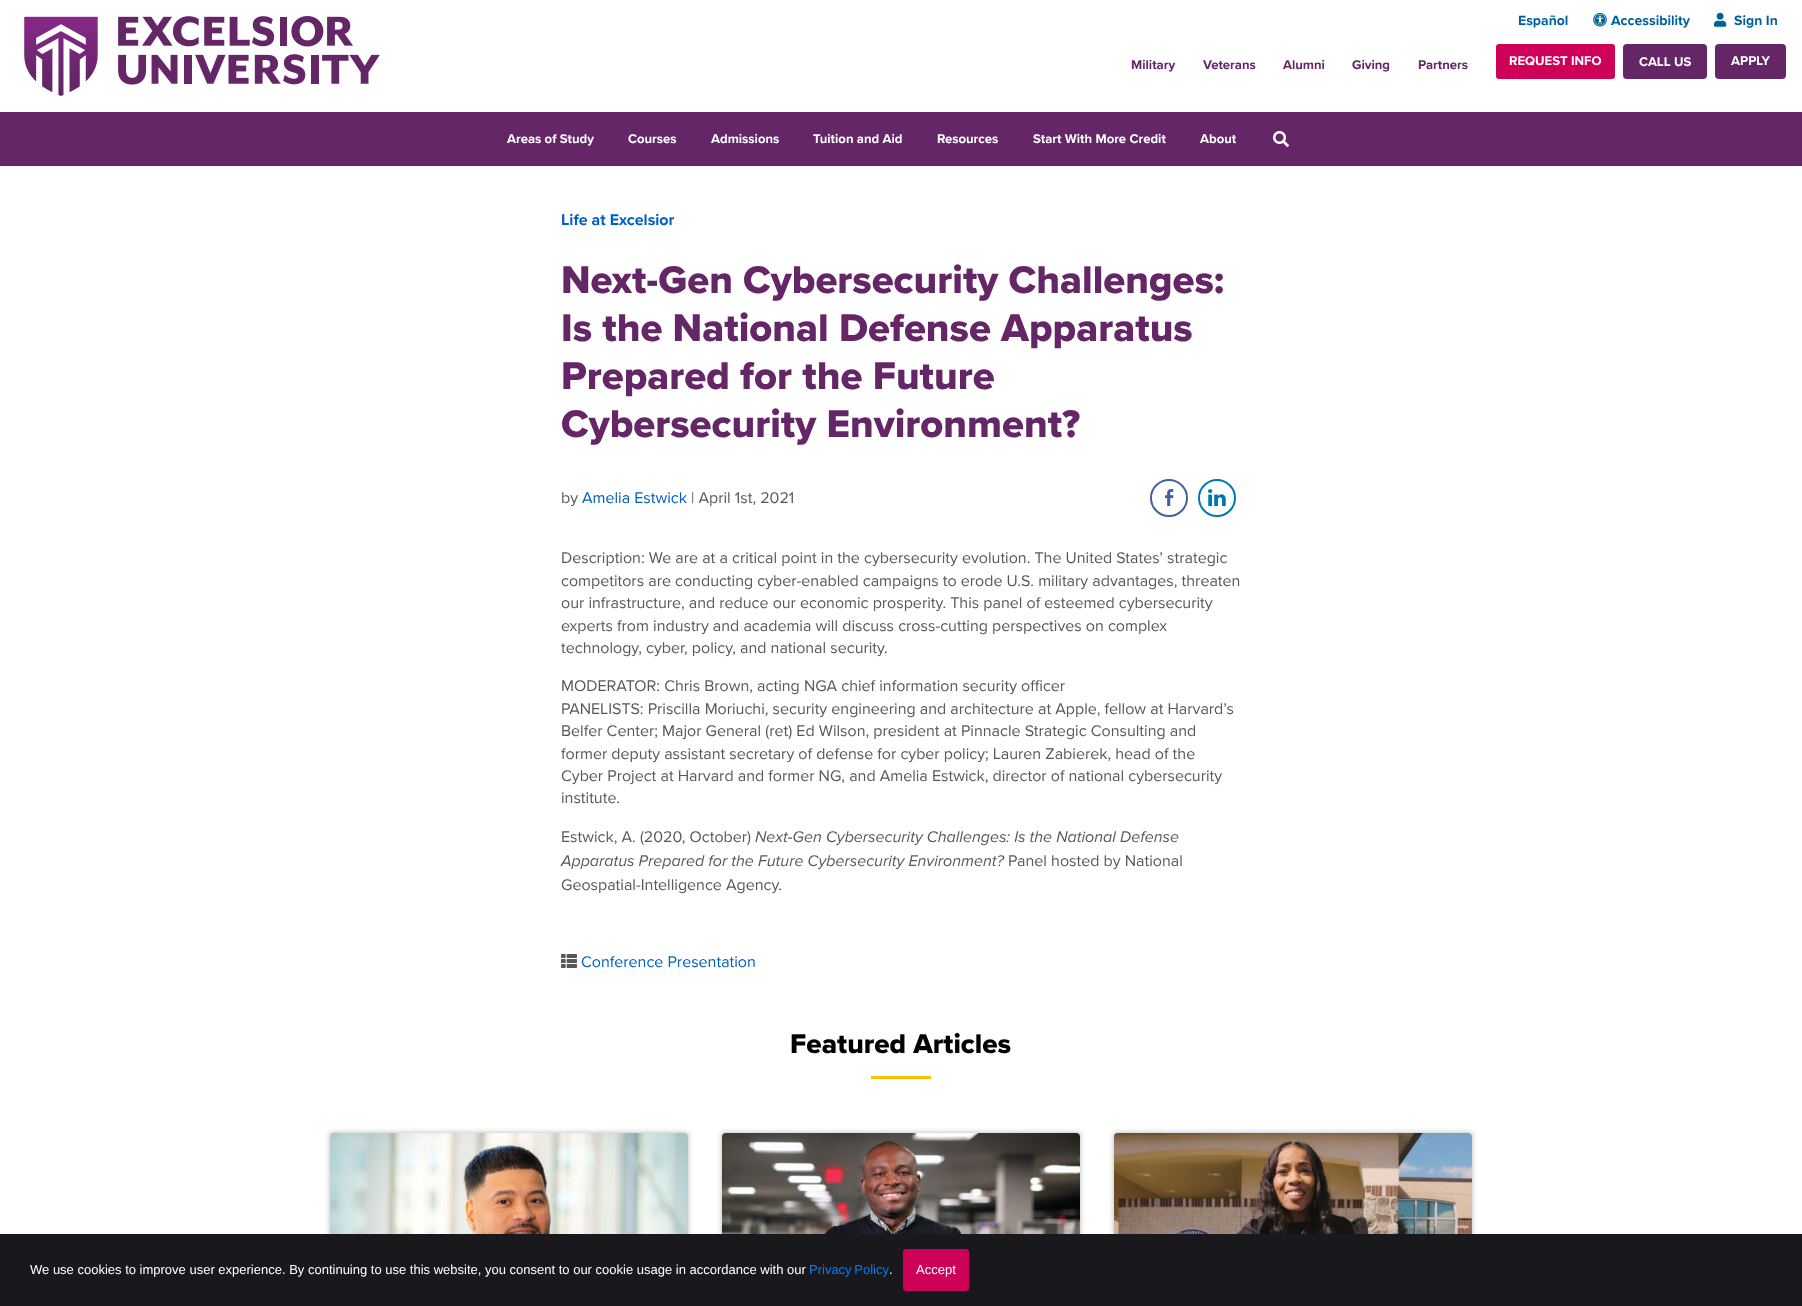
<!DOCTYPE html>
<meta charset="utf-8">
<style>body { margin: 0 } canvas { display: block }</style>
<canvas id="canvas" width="1802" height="1306"></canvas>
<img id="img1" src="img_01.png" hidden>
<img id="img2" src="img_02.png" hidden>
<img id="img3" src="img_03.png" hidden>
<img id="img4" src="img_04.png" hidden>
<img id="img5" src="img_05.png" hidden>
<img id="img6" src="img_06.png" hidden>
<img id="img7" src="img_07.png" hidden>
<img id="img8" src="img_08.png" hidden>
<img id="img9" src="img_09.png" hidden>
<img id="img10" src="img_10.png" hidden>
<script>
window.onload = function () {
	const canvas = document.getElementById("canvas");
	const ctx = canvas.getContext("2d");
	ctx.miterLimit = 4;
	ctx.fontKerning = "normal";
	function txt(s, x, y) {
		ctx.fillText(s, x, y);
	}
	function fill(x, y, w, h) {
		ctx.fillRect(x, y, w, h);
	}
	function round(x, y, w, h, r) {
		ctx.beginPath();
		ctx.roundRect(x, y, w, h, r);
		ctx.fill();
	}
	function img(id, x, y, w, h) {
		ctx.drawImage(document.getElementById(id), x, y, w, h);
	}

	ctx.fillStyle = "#FFFFFF";
	fill(0, 0, 1802, 1306);
	img("img1", 24, 16, 356, 80);
	img("img2", 1593, 13, 14, 14);
	img("img3", 1714, 12, 13, 15);
	ctx.fillStyle = "#CE0058";
	round(1496, 44, 119, 35, 3);
	ctx.fillStyle = "#642667";
	round(1623, 44, 84, 35, 4);
	round(1715, 44, 71, 35, 4);
	fill(0, 112, 1802, 54);
	img("img4", 1273, 131, 16, 16);
	ctx.beginPath();
	ctx.arc(1169, 498, 18, 0, Math.PI * 2);
	ctx.strokeStyle = "#43609C";
	ctx.lineWidth = 2;
	ctx.stroke();
	img("img5", 1165, 489, 9, 18);
	ctx.beginPath();
	ctx.arc(1217, 498, 18, 0, Math.PI * 2);
	ctx.strokeStyle = "#0077B5";
	ctx.stroke();
	img("img6", 1208, 489, 18, 18);
	img("img7", 561, 954, 16, 14);
	ctx.fillStyle = "#FFC107";
	fill(871, 1076, 60, 3);
	ctx.fillStyle = "#CCCCCC";
	ctx.filter = "blur(2.5px)";
	ctx.beginPath();
	ctx.roundRect(329, 1132, 360, 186, 4);
	ctx.fill();
	ctx.filter = "none";
	ctx.fillStyle = "#FFFFFF";
	ctx.beginPath();
	ctx.roundRect(329.5, 1132.5, 359, 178, 3.5);
	ctx.fill();
	ctx.strokeStyle = "#DFDFDF";
	ctx.lineWidth = 1;
	ctx.stroke();
	img("img8", 330, 1133, 358, 101);
	ctx.fillStyle = "#CCCCCC";
	ctx.filter = "blur(2.5px)";
	ctx.beginPath();
	ctx.roundRect(721, 1132, 360, 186, 4);
	ctx.fill();
	ctx.filter = "none";
	ctx.fillStyle = "#FFFFFF";
	ctx.beginPath();
	ctx.roundRect(721.5, 1132.5, 359, 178, 3.5);
	ctx.fill();
	ctx.stroke();
	img("img9", 722, 1133, 358, 101);
	ctx.fillStyle = "#CCCCCC";
	ctx.filter = "blur(2.5px)";
	ctx.beginPath();
	ctx.roundRect(1113, 1132, 360, 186, 4);
	ctx.fill();
	ctx.filter = "none";
	ctx.fillStyle = "#FFFFFF";
	ctx.beginPath();
	ctx.roundRect(1113.5, 1132.5, 359, 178, 3.5);
	ctx.fill();
	ctx.stroke();
	img("img10", 1114, 1133, 358, 101);
	ctx.fillStyle = "#19191D";
	fill(0, 1234, 1802, 72);
	ctx.fillStyle = "#CE0058";
	round(903, 1249, 66, 42, 3);
	ctx.font = "bold 14px Proxima Nova";
	ctx.fillStyle = "#00629B";
	txt("Español", 1518, 25);
	txt("Accessibility", 1611, 25);
	txt("Sign In", 1734, 25);
	ctx.font = "bold 13.1px Proxima Nova";
	ctx.fillStyle = "#642667";
	txt("Military", 1131, 69);
	txt("Veterans", 1203, 69);
	txt("Alumni", 1283, 69);
	txt("Giving", 1352, 69);
	txt("Partners", 1418, 69);
	ctx.fillStyle = "#FFFFFF";
	txt("REQUEST INFO", 1509, 65);
	txt("CALL US", 1639, 66);
	txt("APPLY", 1731, 65);
	txt("Areas of Study", 507, 143);
	txt("Courses", 628, 143);
	txt("Admissions", 711, 143);
	txt("Tuition and Aid", 813, 143);
	txt("Resources", 937, 143);
	txt("Start With More Credit", 1033, 143);
	txt("About", 1200, 143);
	ctx.font = "bold 16px Proxima Nova";
	ctx.fillStyle = "#005FC3";
	txt("Life at Excelsior", 561, 225);
	ctx.font = "800 40px Proxima Nova";
	ctx.fillStyle = "#642667";
	txt("Next-Gen Cybersecurity Challenges:", 561, 293);
	txt("Is the National Defense Apparatus", 561, 341);
	txt("Prepared for the Future", 561, 389);
	txt("Cybersecurity Environment?", 561, 437);
	ctx.font = "16px Proxima Nova";
	ctx.fillStyle = "#585858";
	txt("by", 561, 503);
	ctx.fillStyle = "#005FC3";
	txt("Amelia Estwick", 582, 503);
	ctx.fillStyle = "#585858";
	txt("| April 1st, 2021", 691, 503);
	txt("Description: We are at a critical point in the cybersecurity evolution. The United States’ strategic", 561, 563);
	txt("competitors are conducting cyber-enabled campaigns to erode U.S. military advantages, threaten", 561, 586);
	txt("our infrastructure, and reduce our economic prosperity. This panel of esteemed cybersecurity", 561, 608);
	txt("experts from industry and academia will discuss cross-cutting perspectives on complex", 561, 631);
	txt("technology, cyber, policy, and national security.", 561, 653);
	txt("MODERATOR: Chris Brown, acting NGA chief information security officer", 561, 691);
	txt("PANELISTS: Priscilla Moriuchi, security engineering and architecture at Apple, fellow at Harvard’s", 561, 714);
	txt("Belfer Center; Major General (ret) Ed Wilson, president at Pinnacle Strategic Consulting and", 561, 736);
	txt("former deputy assistant secretary of defense for cyber policy; Lauren Zabierek, head of the", 561, 759);
	txt("Cyber Project at Harvard and former NG, and Amelia Estwick, director of national cybersecurity", 561, 781);
	txt("institute.", 561, 803);
	txt("Estwick, A. (2020, October)", 561, 842);
	ctx.font = "italic 16px Proxima Nova";
	txt("Next-Gen Cybersecurity Challenges: Is the National Defense", 755, 842);
	txt("Apparatus Prepared for the Future Cybersecurity Environment?", 561, 866);
	ctx.font = "16px Proxima Nova";
	txt("Panel hosted by National", 1008, 866);
	txt("Geospatial-Intelligence Agency.", 561, 890);
	ctx.fillStyle = "#005FC3";
	txt("Conference Presentation", 581, 967);
	ctx.font = "800 28px Proxima Nova";
	ctx.fillStyle = "#000000";
	txt("Featured Articles", 790, 1053);
	ctx.font = "13px Liberation Sans";
	ctx.fillStyle = "#FFFFFF";
	txt("We use cookies to improve user experience. By continuing to use this website, you consent to our cookie usage in accordance with our", 30, 1274);
	ctx.wordSpacing = "-1px";
	ctx.fillStyle = "#007BFF";
	txt("Privacy Policy", 809, 1274);
	ctx.wordSpacing = "0px";
	ctx.fillStyle = "#FFFFFF";
	txt(".", 889, 1274);
	txt("Accept", 916, 1274);
};
</script>
